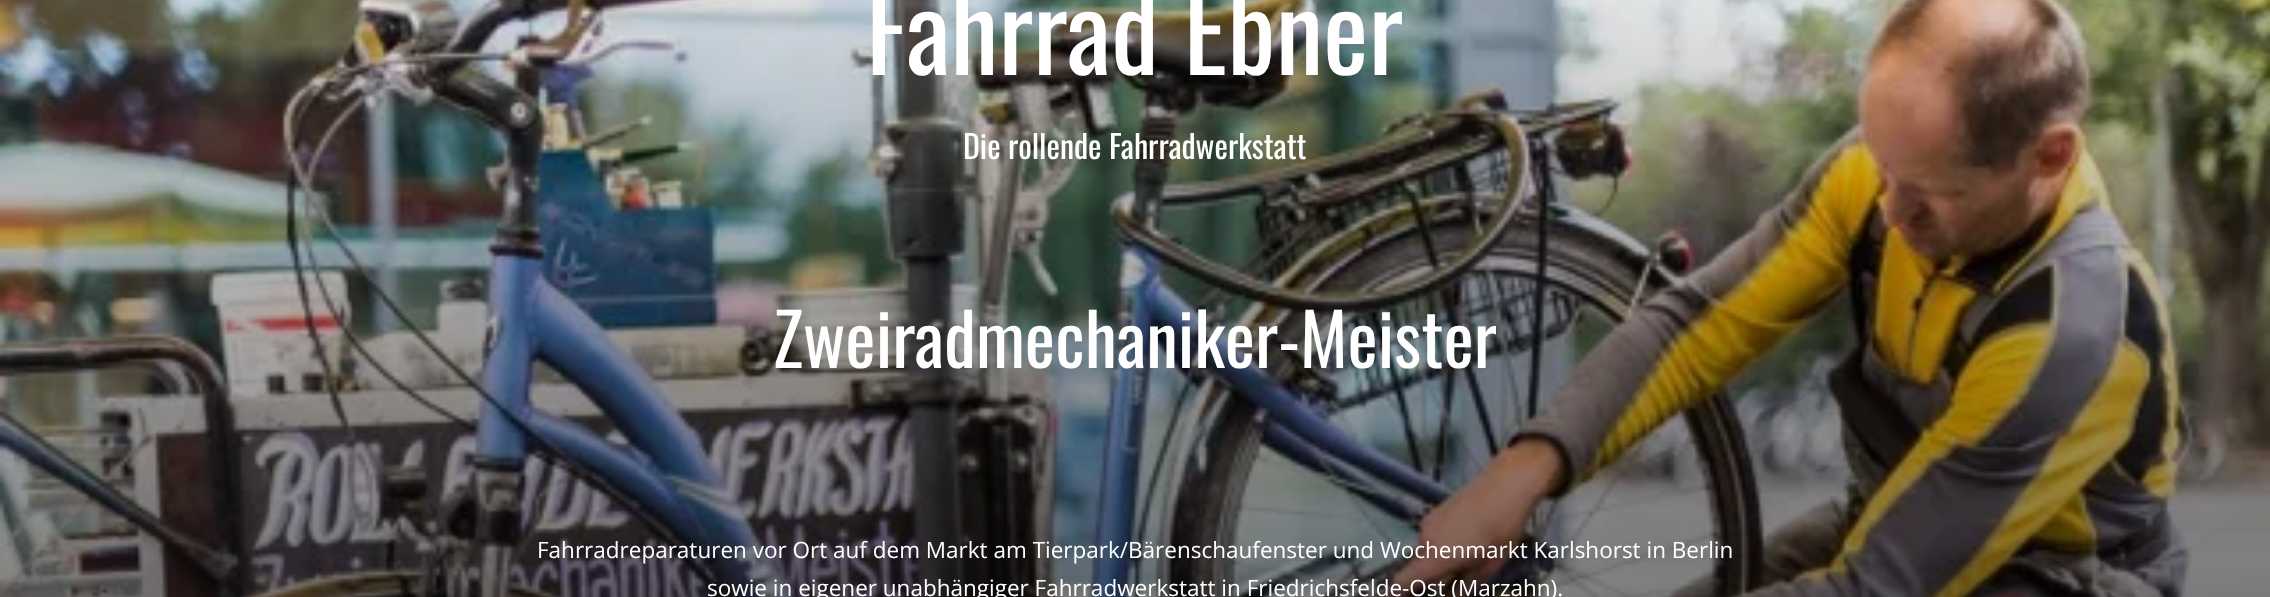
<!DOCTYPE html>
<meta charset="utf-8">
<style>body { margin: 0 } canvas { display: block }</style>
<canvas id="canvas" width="2270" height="597"></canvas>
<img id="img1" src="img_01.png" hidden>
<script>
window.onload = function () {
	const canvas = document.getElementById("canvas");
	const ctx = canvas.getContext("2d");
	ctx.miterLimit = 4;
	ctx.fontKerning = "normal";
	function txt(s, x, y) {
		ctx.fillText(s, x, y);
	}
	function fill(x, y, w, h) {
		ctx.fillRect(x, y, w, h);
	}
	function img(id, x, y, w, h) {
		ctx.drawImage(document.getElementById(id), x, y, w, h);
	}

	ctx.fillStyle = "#FFFFFF";
	fill(0, 0, 2270, 597);
	img("img1", 0, 0, 2270, 597);
	ctx.font = "108px Oswald";
	txt("Fahrrad Ebner", 866, 75);
	ctx.font = "32px Oswald";
	txt("Die rollende Fahrradwerkstatt", 963, 159);
	ctx.font = "72px Oswald";
	txt("Zweiradmechaniker-Meister", 773, 368);
	ctx.font = "22.5px Open Sans";
	txt("Fahrradreparaturen vor Ort auf dem Markt am Tierpark/Bärenschaufenster und Wochenmarkt Karlshorst in Berlin", 537, 558);
	txt("sowie in eigener unabhängiger Fahrradwerkstatt in Friedrichsfelde-Ost (Marzahn).", 707, 596);
};
</script>
